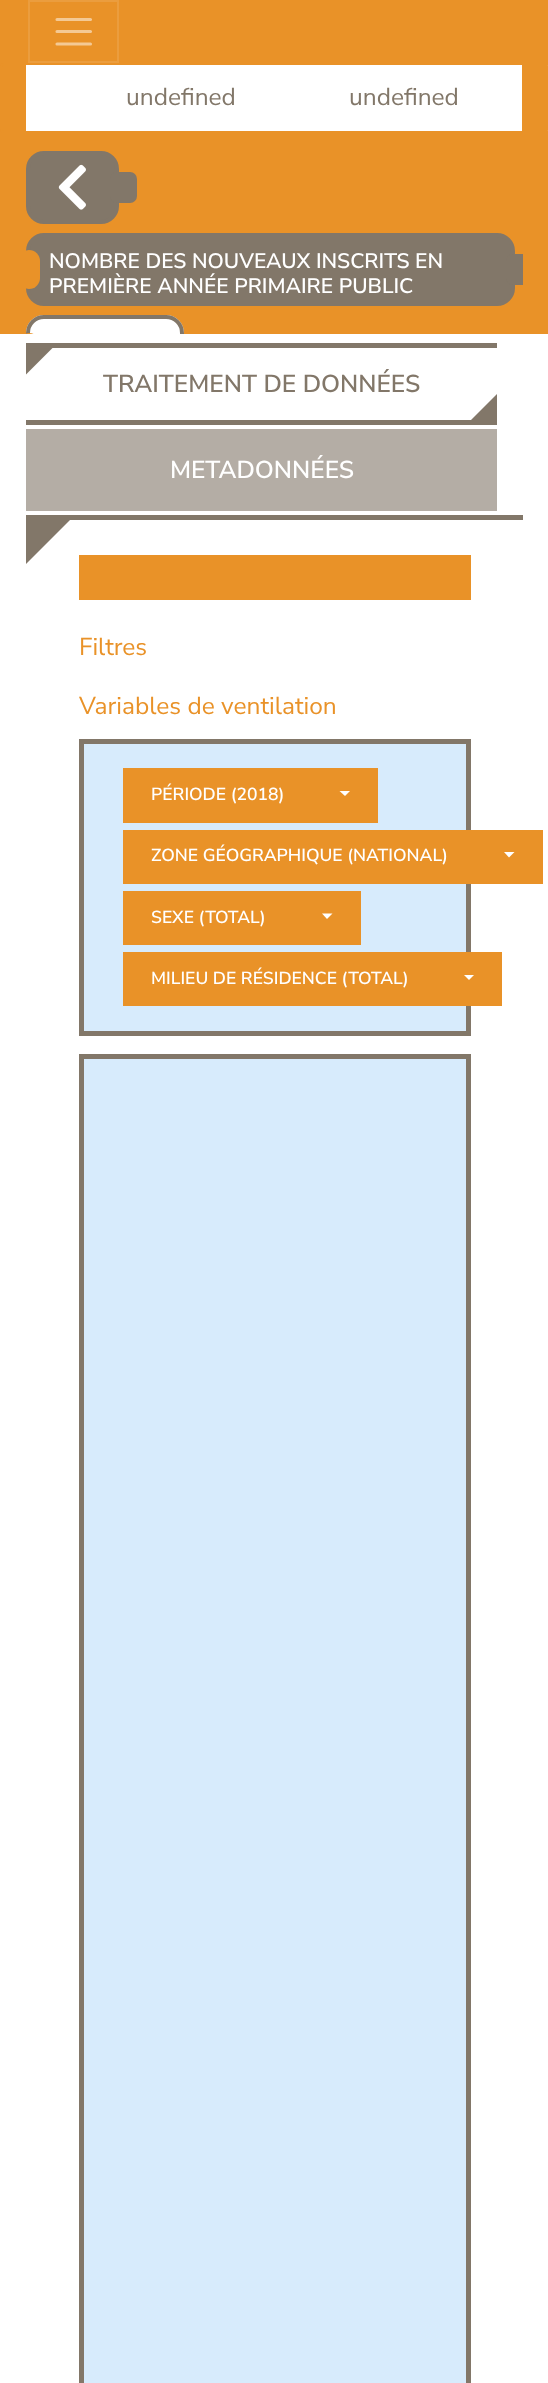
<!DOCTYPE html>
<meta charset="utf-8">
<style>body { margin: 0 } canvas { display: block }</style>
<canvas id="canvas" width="548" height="2383"></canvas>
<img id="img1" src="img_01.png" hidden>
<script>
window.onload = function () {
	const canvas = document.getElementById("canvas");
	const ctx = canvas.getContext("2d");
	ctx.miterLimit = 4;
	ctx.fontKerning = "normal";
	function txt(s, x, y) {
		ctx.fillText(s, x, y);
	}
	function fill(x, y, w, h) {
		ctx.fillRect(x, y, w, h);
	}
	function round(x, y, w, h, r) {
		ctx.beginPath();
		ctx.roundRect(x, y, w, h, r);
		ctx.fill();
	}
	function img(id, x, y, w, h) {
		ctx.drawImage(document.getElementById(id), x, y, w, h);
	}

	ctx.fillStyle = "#E99228";
	fill(0, 0, 548, 2383);
	ctx.strokeStyle = "#EB9D3E";
	ctx.lineWidth = 2;
	ctx.strokeRect(29, 1, 89, 61);
	ctx.beginPath();
	ctx.moveTo(57, 19.5);
	ctx.lineTo(90.5, 19.5);
	ctx.moveTo(57, 31.5);
	ctx.lineTo(90.5, 31.5);
	ctx.moveTo(57, 44);
	ctx.lineTo(90.5, 44);
	ctx.strokeStyle = "#F4C994";
	ctx.lineWidth = 3.1;
	ctx.lineCap = "round";
	ctx.stroke();
	ctx.fillStyle = "#FFFFFF";
	ctx.beginPath();
	ctx.moveTo(26, 65);
	ctx.lineTo(546, 65);
	ctx.bezierCurveTo(547, 65, 548, 66, 548, 66);
	ctx.lineTo(548, 130);
	ctx.bezierCurveTo(548, 130, 547, 131, 546, 131);
	ctx.lineTo(26, 131);
	ctx.closePath();
	ctx.fill();
	ctx.beginPath();
	ctx.roundRect(1, 64, 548, 68, 3);
	ctx.strokeStyle = "#E99228";
	ctx.lineWidth = 2;
	ctx.stroke();
	ctx.fillStyle = "#E99228";
	ctx.beginPath();
	ctx.moveTo(522, 65);
	ctx.lineTo(547, 65);
	ctx.lineTo(548, 66);
	ctx.lineTo(548, 119);
	ctx.lineTo(548, 130);
	ctx.lineTo(547, 131);
	ctx.lineTo(522, 131);
	ctx.closePath();
	ctx.fill();
	ctx.fillStyle = "#FFFFFF";
	fill(0, 334, 548, 2049);
	ctx.fillStyle = "#827769";
	ctx.beginPath();
	ctx.roundRect(28, 153, 89, 69, 16);
	ctx.fill();
	ctx.strokeStyle = "#827769";
	ctx.lineWidth = 4;
	ctx.stroke();
	img("img1", 58, 164, 28, 46);
	round(110, 172, 27, 31, 7);
	ctx.beginPath();
	ctx.roundRect(28, 235, 485, 69, 16);
	ctx.fill();
	ctx.stroke();
	ctx.save();
	ctx.beginPath();
	ctx.rect(26, 151, 497, 183);
	ctx.clip();
	ctx.fillStyle = "#E99228";
	round(18, 250, 22, 39, 11);
	ctx.restore();
	ctx.beginPath();
	ctx.roundRect(506, 254, 17, 31, [7, 0, 0, 7]);
	ctx.fill();
	ctx.fillStyle = "#FFFFFF";
	ctx.beginPath();
	ctx.roundRect(26, 315, 158, 19, [18, 18, 0, 0]);
	ctx.fill();
	ctx.save();
	ctx.beginPath();
	ctx.rect(26, 151, 497, 183);
	ctx.clip();
	ctx.beginPath();
	ctx.roundRect(28, 317, 154, 70, 16);
	ctx.stroke();
	ctx.fillStyle = "#E99228";
	round(18, 333, 22, 38, 11);
	ctx.restore();
	ctx.fillStyle = "#827769";
	fill(26, 343, 471, 5);
	fill(26, 420, 471, 5);
	ctx.beginPath();
	ctx.moveTo(26, 348);
	ctx.lineTo(52.5, 348);
	ctx.lineTo(26, 374.5);
	ctx.closePath();
	ctx.fill();
	ctx.beginPath();
	ctx.moveTo(497, 420);
	ctx.lineTo(471, 420);
	ctx.lineTo(497, 394);
	ctx.closePath();
	ctx.fill();
	ctx.fillStyle = "#B4ADA5";
	fill(26, 429, 471, 82);
	ctx.fillStyle = "#827769";
	fill(26, 515, 497, 5);
	ctx.beginPath();
	ctx.moveTo(26, 520);
	ctx.lineTo(70, 520);
	ctx.lineTo(26, 564);
	ctx.closePath();
	ctx.fill();
	ctx.fillStyle = "#E99228";
	fill(79, 555, 392, 45);
	ctx.fillStyle = "#D7EBFC";
	ctx.beginPath();
	ctx.rect(81.5, 741.5, 387, 292);
	ctx.fill();
	ctx.lineWidth = 5;
	ctx.stroke();
	ctx.fillStyle = "#E99228";
	fill(123, 768, 255, 55);
	ctx.fillStyle = "#FFFFFF";
	ctx.beginPath();
	ctx.moveTo(339.5, 791);
	ctx.lineTo(350, 791);
	ctx.lineTo(345, 796);
	ctx.closePath();
	ctx.fill();
	ctx.fillStyle = "#E99228";
	fill(123, 830, 420, 54);
	ctx.fillStyle = "#FFFFFF";
	ctx.beginPath();
	ctx.moveTo(504, 852);
	ctx.lineTo(514.5, 852);
	ctx.lineTo(509, 857.5);
	ctx.closePath();
	ctx.fill();
	ctx.fillStyle = "#E99228";
	fill(123, 891, 238, 54);
	ctx.fillStyle = "#FFFFFF";
	ctx.beginPath();
	ctx.moveTo(322, 913.5);
	ctx.lineTo(332.5, 913.5);
	ctx.lineTo(327, 919);
	ctx.closePath();
	ctx.fill();
	ctx.fillStyle = "#E99228";
	fill(123, 952, 379, 54);
	ctx.fillStyle = "#FFFFFF";
	ctx.beginPath();
	ctx.moveTo(464, 975);
	ctx.lineTo(474, 975);
	ctx.lineTo(469, 980);
	ctx.closePath();
	ctx.fill();
	ctx.fillStyle = "#D7EBFC";
	ctx.beginPath();
	ctx.rect(81.5, 1056.5, 387, 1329);
	ctx.fill();
	ctx.stroke();
	ctx.font = "24.5px Nunito Sans";
	ctx.fillStyle = "#827769";
	txt("undefined", 126, 105);
	txt("undefined", 349, 105);
	ctx.font = "600 21px Nunito Sans";
	ctx.fillStyle = "#FFFFFF";
	txt("NOMBRE DES NOUVEAUX INSCRITS EN", 49, 268);
	txt("PREMIÈRE ANNÉE PRIMAIRE PUBLIC", 49, 293);
	ctx.font = "600 24.5px Nunito Sans";
	ctx.fillStyle = "#827769";
	txt("TRAITEMENT DE DONNÉES", 103, 392);
	ctx.fillStyle = "#FFFFFF";
	txt("METADONNÉES", 170, 478);
	ctx.font = "24.5px Nunito Sans";
	ctx.fillStyle = "#E99228";
	txt("Filtres", 79, 655);
	txt("Variables de ventilation", 79, 714);
	ctx.font = "600 17.5px Nunito Sans";
	ctx.fillStyle = "#FFFFFF";
	txt("PÉRIODE (2018)", 151, 800);
	txt("ZONE GÉOGRAPHIQUE (NATIONAL)", 151, 861);
	txt("SEXE (TOTAL)", 151, 923);
	txt("MILIEU DE RÉSIDENCE (TOTAL)", 151, 984);
};
</script>
